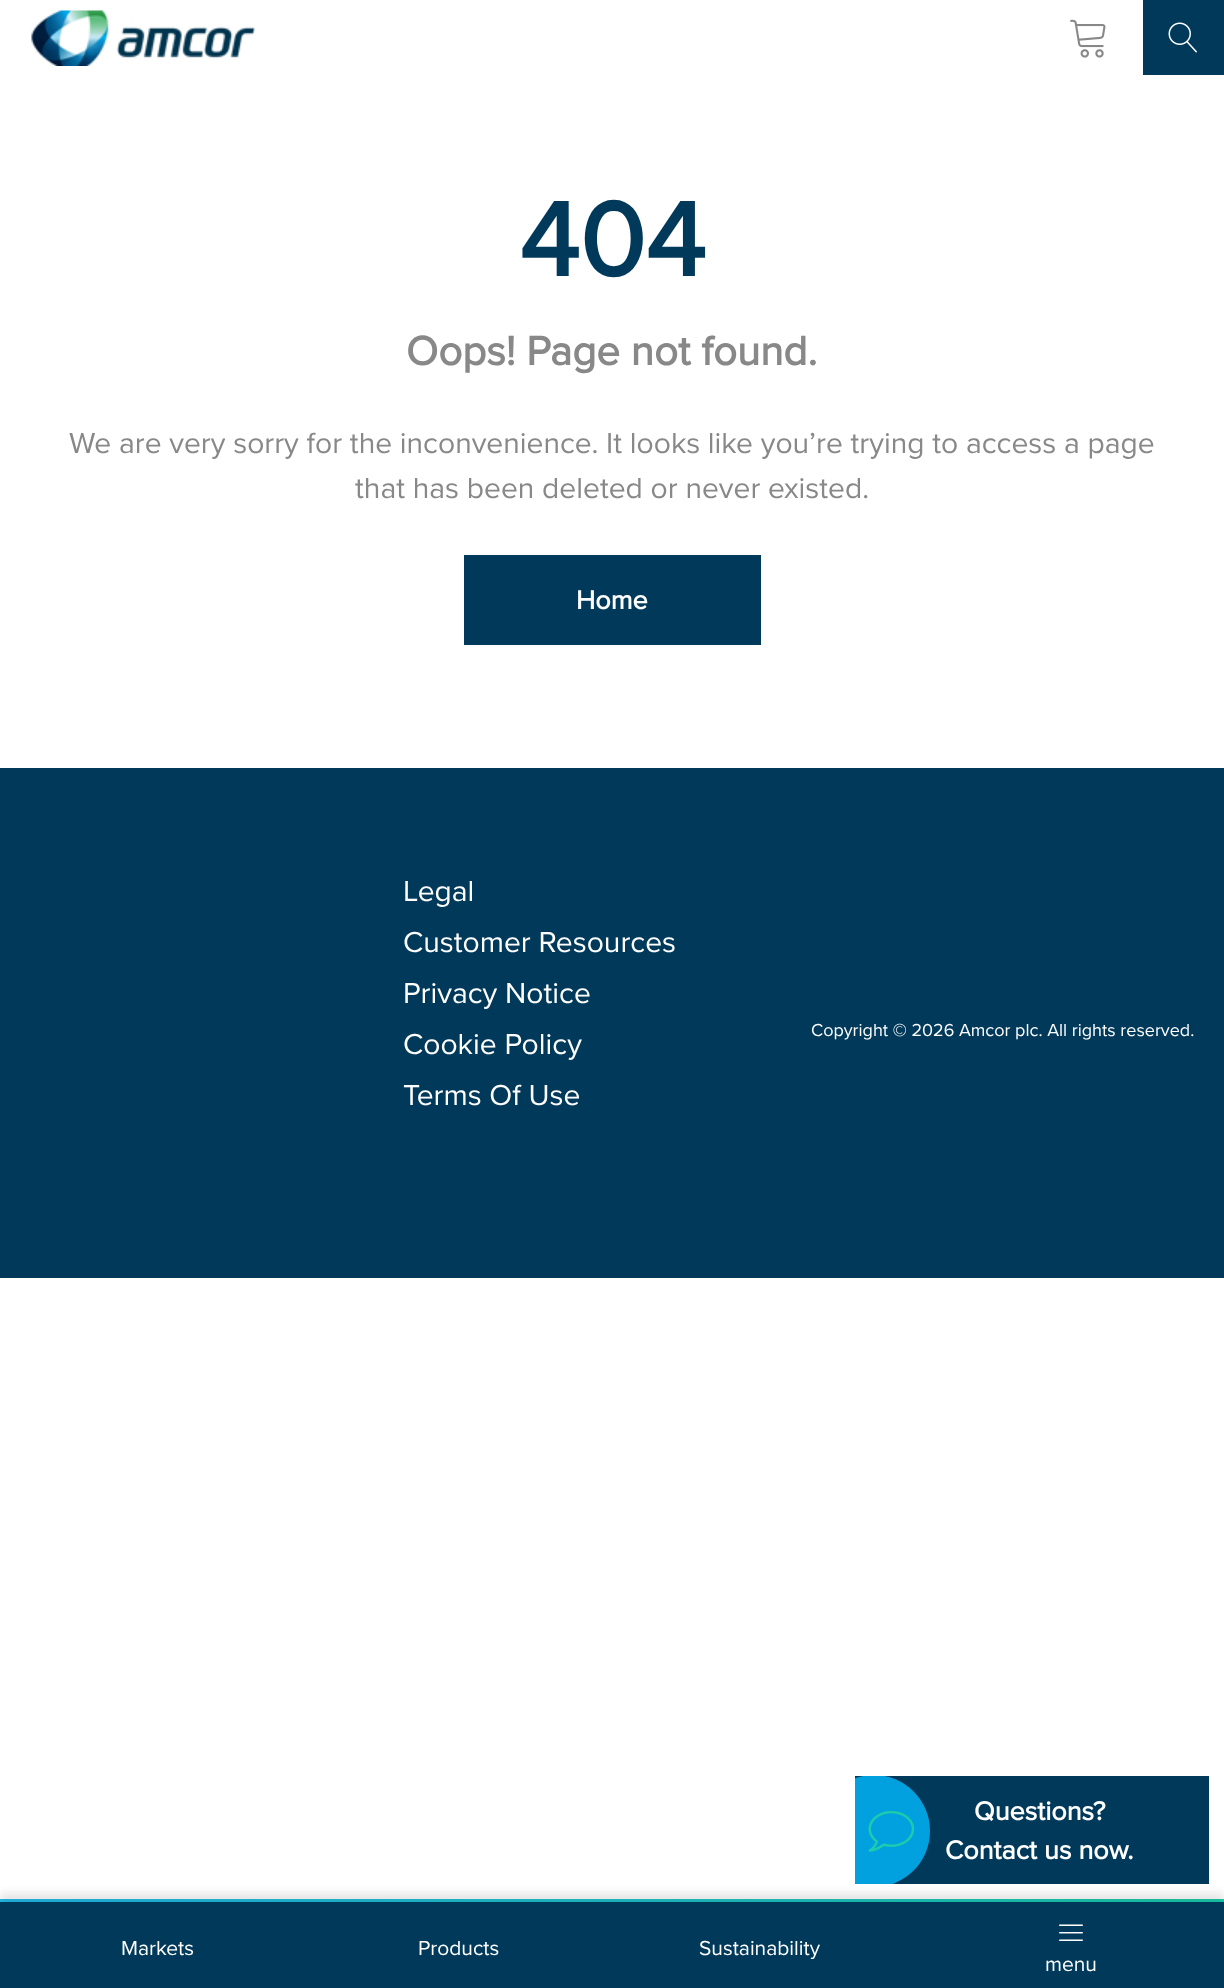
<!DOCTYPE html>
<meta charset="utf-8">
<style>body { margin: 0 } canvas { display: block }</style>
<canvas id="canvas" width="1224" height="1988"></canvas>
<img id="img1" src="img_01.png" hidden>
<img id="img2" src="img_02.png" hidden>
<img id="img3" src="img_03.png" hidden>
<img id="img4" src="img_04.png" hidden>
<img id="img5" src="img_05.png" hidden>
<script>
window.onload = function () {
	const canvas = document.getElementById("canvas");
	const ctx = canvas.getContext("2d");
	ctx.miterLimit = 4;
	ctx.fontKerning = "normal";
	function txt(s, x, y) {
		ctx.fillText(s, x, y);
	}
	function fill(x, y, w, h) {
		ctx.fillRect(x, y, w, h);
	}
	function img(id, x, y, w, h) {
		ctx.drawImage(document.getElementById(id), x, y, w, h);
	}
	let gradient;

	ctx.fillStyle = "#FFFFFF";
	fill(0, 0, 1224, 1988);
	ctx.fillStyle = "#00395A";
	fill(464, 555, 297, 90);
	fill(0, 768, 1224, 510);
	fill(855, 1776, 354, 108);
	ctx.save();
	ctx.beginPath();
	ctx.rect(855, 1776, 354, 108);
	ctx.clip();
	ctx.fillStyle = "#00A1DE";
	ctx.beginPath();
	ctx.arc(874, 1831, 56, 0, Math.PI * 2);
	ctx.fill();
	ctx.restore();
	img("img1", 868, 1811, 47, 41);
	gradient = ctx.createLinearGradient(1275, 1958, -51, 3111);
	gradient.addColorStop(0, "#1BCDAC");
	gradient.addColorStop(0.55, "#24BBEE");
	gradient.addColorStop(1, "#24BBEE");
	ctx.fillStyle = gradient;
	fill(0, 1899, 1224, 3);
	img("img2", 31, 10, 224, 56);
	img("img3", 1070, 19, 36, 39);
	ctx.fillStyle = "#00395A";
	fill(1143, 0, 81, 75);
	img("img4", 1168, 22, 29, 31);
	ctx.fillStyle = "rgba(0, 0, 0, 0.1)";
	ctx.filter = "blur(4.5px)";
	ctx.beginPath();
	ctx.rect(0, 1893, 1224, 89);
	ctx.fill();
	ctx.filter = "none";
	ctx.fillStyle = "#00395A";
	fill(0, 1902, 1224, 86);
	img("img5", 1059, 1924, 24, 17);
	ctx.font = "bold 108px Proxima Nova";
	txt("404", 519, 276);
	ctx.font = "bold 42px Proxima Nova";
	ctx.fillStyle = "#888888";
	txt("Oops! Page not found.", 406, 365);
	ctx.font = "30px Proxima Nova";
	txt("We are very sorry for the inconvenience. It looks like you’re trying to access a page", 69, 453);
	txt("that has been deleted or never existed.", 355, 498);
	ctx.font = "bold 27px Proxima Nova";
	ctx.fillStyle = "#FFFFFF";
	txt("Home", 576, 609);
	ctx.font = "30px Proxima Nova";
	txt("Legal", 403, 901);
	txt("Customer Resources", 403, 952);
	txt("Privacy Notice", 403, 1003);
	txt("Cookie Policy", 403, 1054);
	txt("Terms Of Use", 403, 1105);
	ctx.font = "18px Proxima Nova";
	txt("Copyright © 2026 Amcor plc. All rights reserved.", 811, 1036);
	ctx.font = "bold 27px Proxima Nova";
	txt("Questions?", 974, 1820);
	txt("Contact us now.", 945, 1859);
	ctx.font = "21px Proxima Nova";
	txt("Markets", 121, 1955);
	txt("Products", 418, 1955);
	txt("Sustainability", 699, 1955);
	txt("menu", 1045, 1971);
};
</script>
